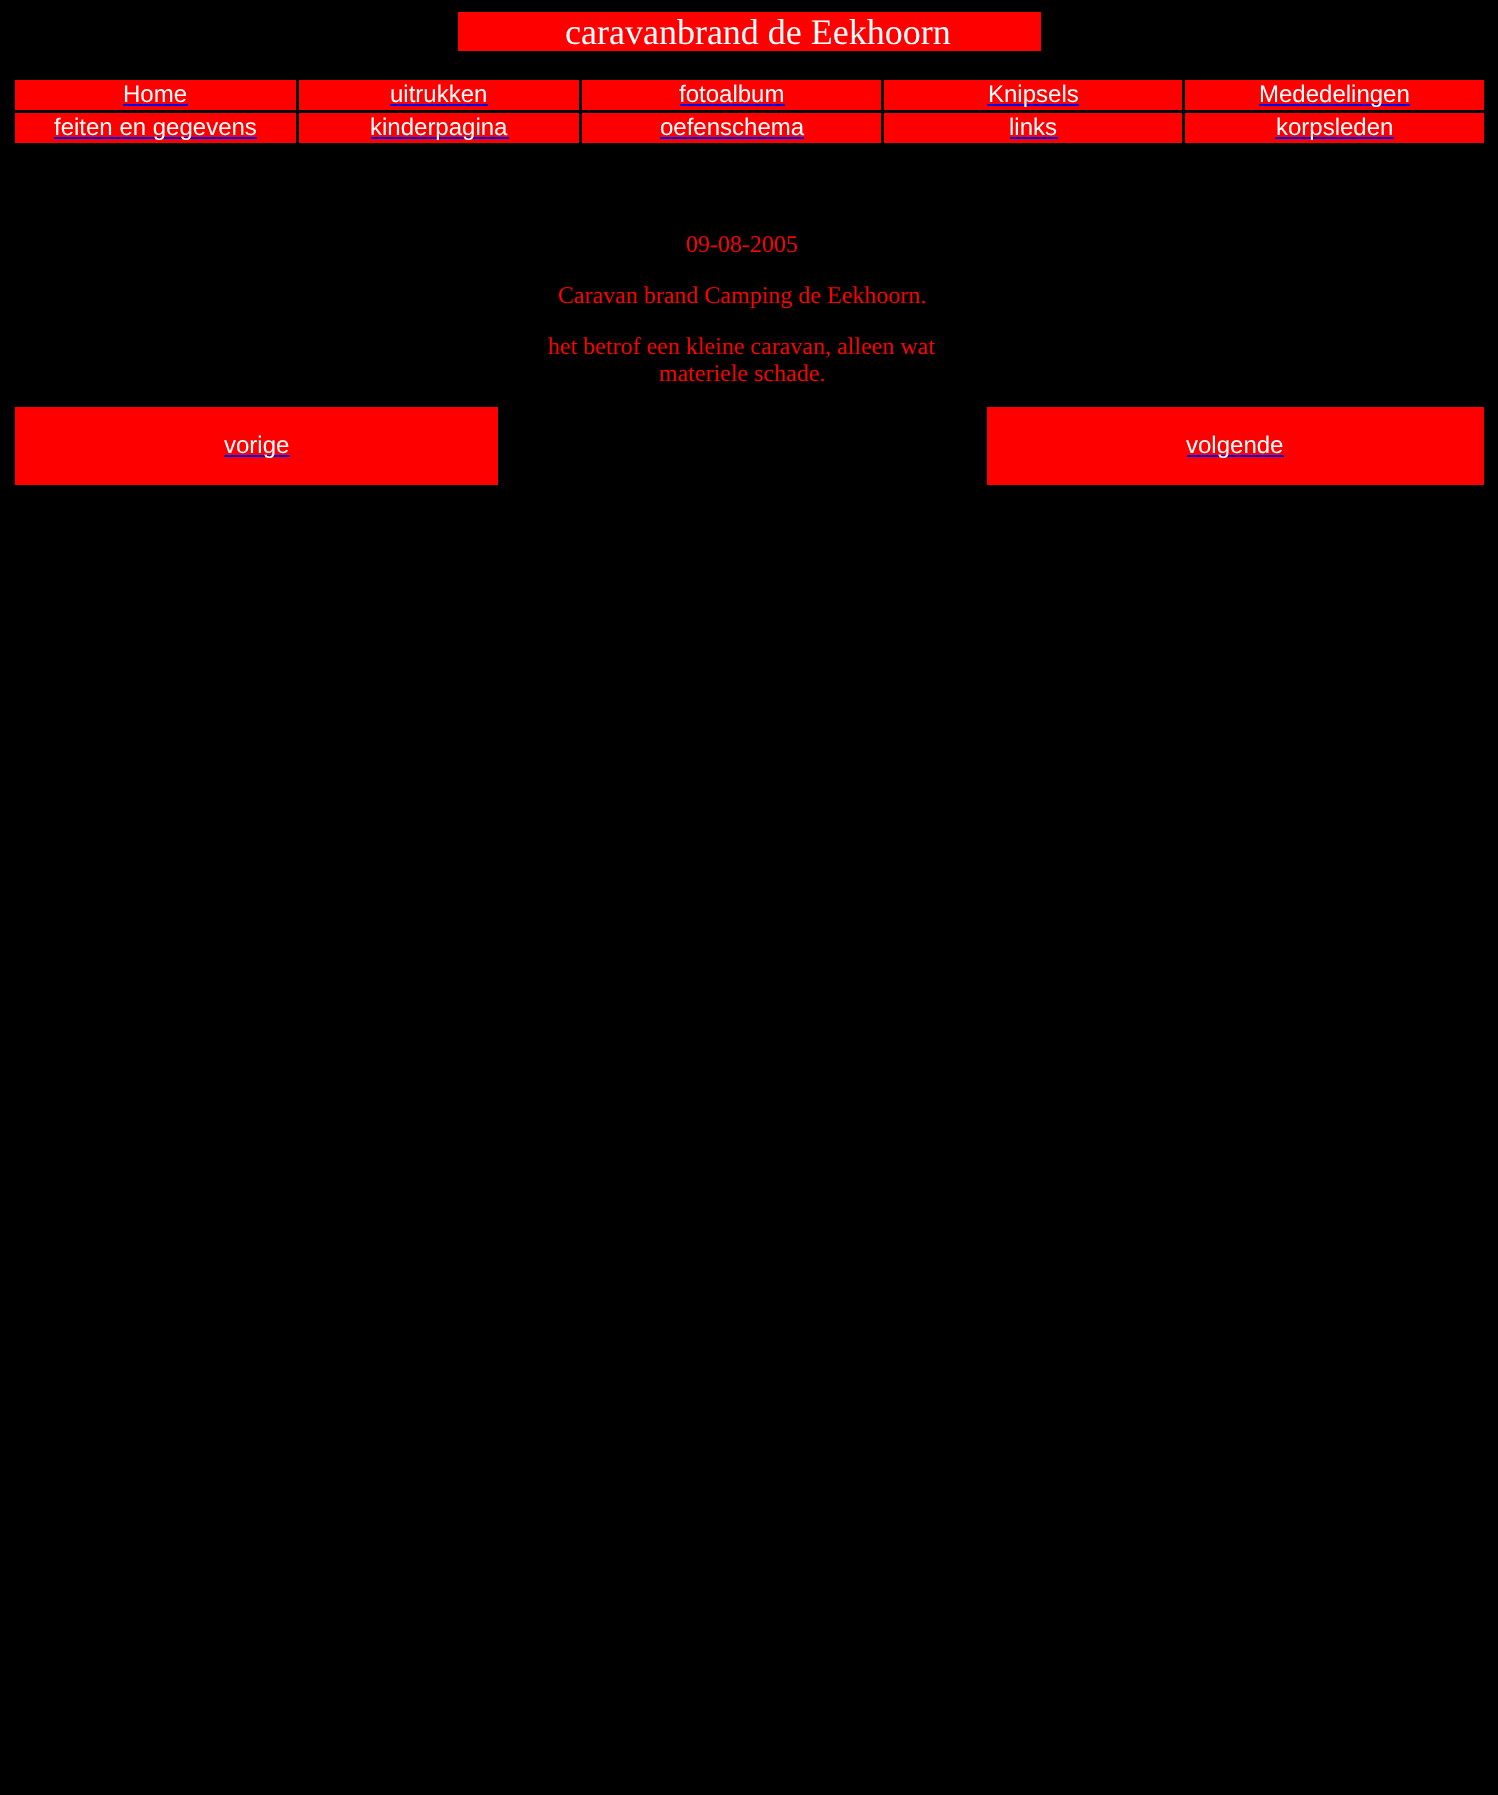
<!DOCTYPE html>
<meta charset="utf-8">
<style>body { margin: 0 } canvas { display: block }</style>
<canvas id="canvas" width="1498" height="1795"></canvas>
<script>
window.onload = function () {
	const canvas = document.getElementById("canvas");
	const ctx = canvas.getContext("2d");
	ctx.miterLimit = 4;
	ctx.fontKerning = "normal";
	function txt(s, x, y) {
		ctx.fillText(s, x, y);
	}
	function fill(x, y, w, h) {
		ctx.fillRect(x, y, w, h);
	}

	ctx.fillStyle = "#000000";
	fill(0, 0, 1498, 1795);
	ctx.fillStyle = "#FF0000";
	fill(458, 12, 583, 39);
	fill(15, 80, 281, 30);
	ctx.fillStyle = "#0000EE";
	fill(123, 104, 65, 2);
	ctx.fillStyle = "#FF0000";
	fill(299, 80, 280, 30);
	ctx.fillStyle = "#0000EE";
	fill(390, 104, 98, 2);
	ctx.fillStyle = "#FF0000";
	fill(582, 80, 299, 30);
	ctx.fillStyle = "#0000EE";
	fill(680, 104, 105, 2);
	ctx.fillStyle = "#FF0000";
	fill(884, 80, 298, 30);
	ctx.fillStyle = "#0000EE";
	fill(987, 104, 92, 2);
	ctx.fillStyle = "#FF0000";
	fill(1185, 80, 299, 30);
	ctx.fillStyle = "#0000EE";
	fill(1259, 104, 151, 2);
	ctx.fillStyle = "#FF0000";
	fill(15, 113, 281, 30);
	ctx.fillStyle = "#0000EE";
	fill(54, 137, 203, 2);
	ctx.fillStyle = "#FF0000";
	fill(299, 113, 280, 30);
	ctx.fillStyle = "#0000EE";
	fill(371, 137, 138, 2);
	ctx.fillStyle = "#FF0000";
	fill(582, 113, 299, 30);
	ctx.fillStyle = "#0000EE";
	fill(660, 137, 144, 2);
	ctx.fillStyle = "#FF0000";
	fill(884, 113, 298, 30);
	ctx.fillStyle = "#0000EE";
	fill(1010, 137, 48, 2);
	ctx.fillStyle = "#FF0000";
	fill(1185, 113, 299, 30);
	ctx.fillStyle = "#0000EE";
	fill(1275, 137, 119, 2);
	ctx.fillStyle = "#FF0000";
	fill(15, 407, 483, 78);
	ctx.fillStyle = "#0000EE";
	fill(224, 455, 66, 2);
	ctx.fillStyle = "#FF0000";
	fill(987, 407, 497, 78);
	ctx.fillStyle = "#0000EE";
	fill(1187, 455, 97, 2);
	ctx.font = "36px Liberation Serif";
	ctx.fillStyle = "#FFFFFF";
	txt("caravanbrand de Eekhoorn", 565, 44);
	ctx.font = "24px Liberation Sans";
	txt("Home", 123, 102);
	txt("uitrukken", 390, 102);
	txt("fotoalbum", 679, 102);
	txt("Knipsels", 988, 102);
	txt("Mededelingen", 1259, 102);
	txt("feiten en gegevens", 54, 135);
	txt("kinderpagina", 370, 135);
	txt("oefenschema", 660, 135);
	txt("links", 1009, 135);
	txt("korpsleden", 1276, 135);
	ctx.font = "24px Liberation Serif";
	ctx.fillStyle = "#FF0000";
	txt("09-08-2005", 686, 252);
	txt("Caravan brand Camping de Eekhoorn.", 558, 303);
	txt("het betrof een kleine caravan, alleen wat", 548, 354);
	txt("materiele schade.", 659, 381);
	ctx.font = "24px Liberation Sans";
	ctx.fillStyle = "#FFFFFF";
	txt("vorige", 224, 453);
	txt("volgende", 1186, 453);
};
</script>
